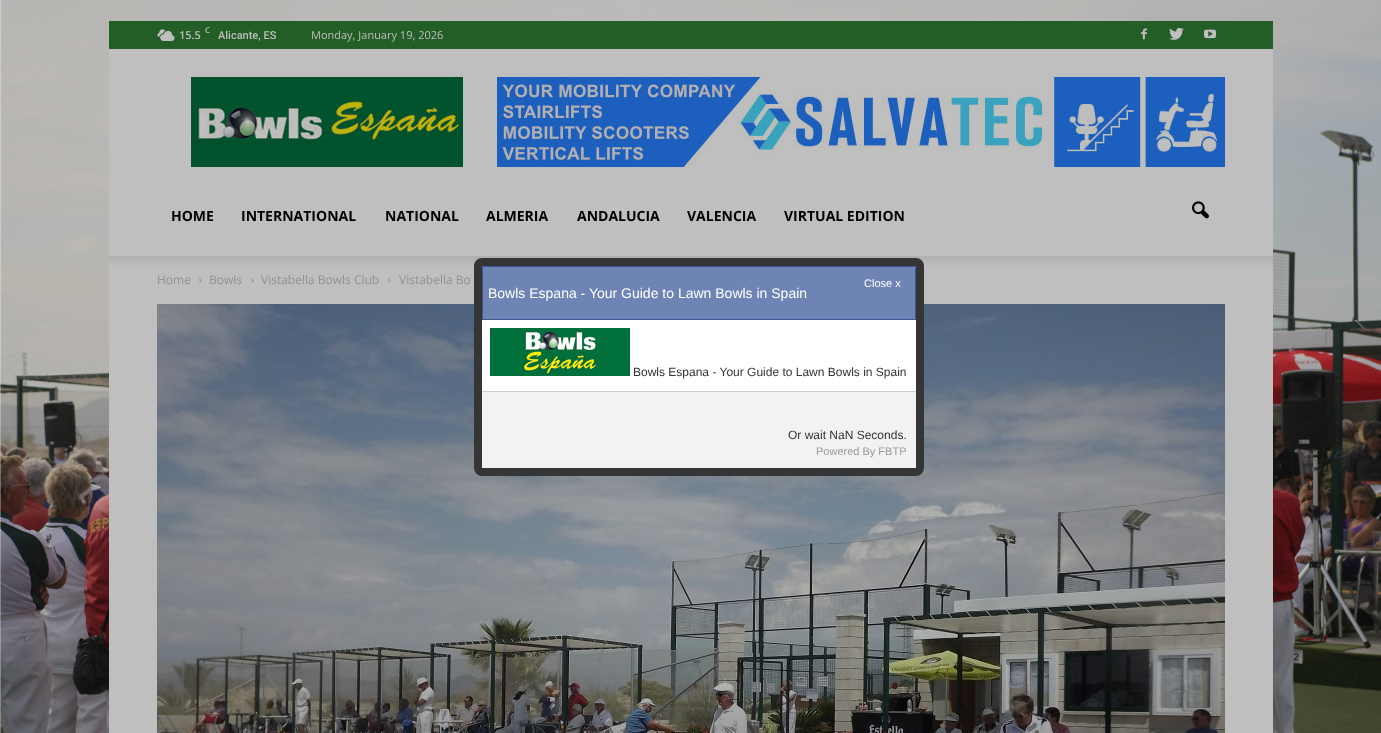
<!DOCTYPE html>
<meta charset="utf-8">
<style>body { margin: 0 } canvas { display: block }</style>
<canvas id="canvas" width="1381" height="733"></canvas>
<img id="img1" src="img_01.png" hidden>
<img id="img2" src="img_02.png" hidden>
<img id="img3" src="img_03.png" hidden>
<img id="img4" src="img_04.png" hidden>
<img id="img5" src="img_05.png" hidden>
<img id="img6" src="img_06.png" hidden>
<img id="img7" src="img_07.png" hidden>
<img id="img8" src="img_08.png" hidden>
<img id="img9" src="img_09.png" hidden>
<img id="img10" src="img_10.png" hidden>
<img id="img11" src="img_11.png" hidden>
<img id="img12" src="img_12.png" hidden>
<script>
window.onload = function () {
	const canvas = document.getElementById("canvas");
	const ctx = canvas.getContext("2d");
	ctx.miterLimit = 4;
	ctx.fontKerning = "normal";
	function txt(s, x, y) {
		ctx.fillText(s, x, y);
	}
	function fill(x, y, w, h) {
		ctx.fillRect(x, y, w, h);
	}
	function img(id, x, y, w, h) {
		ctx.drawImage(document.getElementById(id), x, y, w, h);
	}

	ctx.fillStyle = "#FFFFFF";
	fill(0, 0, 1381, 733);
	img("img1", 0, 0, 1381, 733);
	ctx.fillStyle = "#235E26";
	fill(109, 21, 1164, 28);
	img("img2", 157, 29, 18, 12);
	img("img3", 1141, 28, 6, 12);
	img("img4", 1169, 27, 15, 13);
	img("img5", 1204, 29, 12, 10);
	ctx.fillStyle = "#BFBFBF";
	fill(109, 49, 1164, 207);
	img("img6", 191, 77, 272, 90);
	img("img7", 497, 77, 728, 90);
	img("img8", 1192, 201, 17, 18);
	fill(109, 256, 1164, 477);
	img("img9", 109, 256, 1164, 9);
	img("img10", 199, 278, 3, 5);
	img("img10", 251, 278, 3, 5);
	img("img10", 388, 278, 3, 5);
	img("img11", 157, 304, 1068, 429);
	ctx.beginPath();
	ctx.roundRect(478, 262, 442, 210, 4);
	ctx.strokeStyle = "#353535";
	ctx.lineWidth = 8;
	ctx.stroke();
	ctx.fillStyle = "#6D84B4";
	ctx.beginPath();
	ctx.rect(482.5, 266.5, 433, 53);
	ctx.fill();
	ctx.strokeStyle = "#3C5492";
	ctx.lineWidth = 1;
	ctx.stroke();
	ctx.fillStyle = "#FFFFFF";
	fill(482, 320, 434, 71);
	img("img12", 490, 328, 140, 48);
	ctx.fillStyle = "#F2F2F2";
	fill(482, 392, 434, 76);
	ctx.fillStyle = "#CCCCCC";
	fill(482, 391, 434, 1);
	ctx.font = "600 11px Open Sans";
	ctx.fillStyle = "#BFBFBF";
	txt("15.5", 179, 39);
	ctx.font = "600 8px Open Sans";
	txt("C", 205, 33);
	ctx.font = "500 11px Roboto";
	txt("Alicante, ES", 218, 39);
	ctx.font = "11px Open Sans";
	txt("Monday, January 19, 2026", 311, 39);
	ctx.font = "bold 14px Open Sans";
	ctx.fillStyle = "#000000";
	txt("HOME", 171, 221);
	txt("INTERNATIONAL", 241, 221);
	txt("NATIONAL", 385, 221);
	txt("ALMERIA", 486, 221);
	txt("ANDALUCIA", 577, 221);
	txt("VALENCIA", 687, 221);
	txt("VIRTUAL EDITION", 784, 221);
	ctx.font = "12px Open Sans";
	ctx.fillStyle = "#929292";
	txt("Home", 157, 284);
	txt("Bowls", 209, 284);
	txt("Vistabella Bowls Club", 261, 284);
	txt("Vistabella Bo", 399, 284);
	ctx.font = "11px Liberation Sans";
	ctx.fillStyle = "#FFFFFF";
	txt("Close x", 864, 287);
	ctx.font = "14px Liberation Sans";
	txt("Bowls Espana - Your Guide to Lawn Bowls in Spain", 488, 298);
	ctx.font = "12px Liberation Sans";
	ctx.fillStyle = "#333333";
	txt("Bowls Espana - Your Guide to Lawn Bowls in Spain", 633, 376);
	txt("Or wait NaN Seconds.", 788, 439);
	ctx.font = "11px Liberation Sans";
	ctx.fillStyle = "#999999";
	txt("Powered By FBTP", 816, 455);
};
</script>
